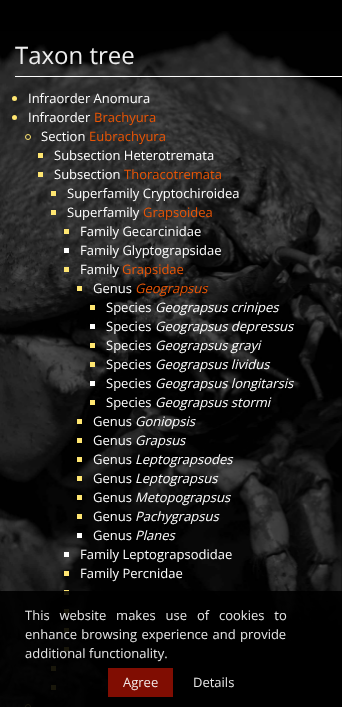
<!DOCTYPE html>
<meta charset="utf-8">
<style>body { margin: 0 } canvas { display: block }</style>
<canvas id="canvas" width="342" height="707"></canvas>
<img id="img1" src="img_01.png" hidden>
<script>
window.onload = function () {
	const canvas = document.getElementById("canvas");
	const ctx = canvas.getContext("2d");
	ctx.miterLimit = 4;
	ctx.fontKerning = "normal";
	function txt(s, x, y) {
		ctx.fillText(s, x, y);
	}
	function fill(x, y, w, h) {
		ctx.fillRect(x, y, w, h);
	}
	function img(id, x, y, w, h) {
		ctx.drawImage(document.getElementById(id), x, y, w, h);
	}

	ctx.fillStyle = "#000000";
	fill(0, 0, 342, 707);
	img("img1", 0, 31, 342, 676);
	ctx.fillStyle = "#FFFFFF";
	fill(15, 76, 327, 1);
	ctx.fillStyle = "#FFE671";
	ctx.beginPath();
	ctx.arc(14.5, 98.5, 2.5, 0, Math.PI * 2);
	ctx.fill();
	ctx.beginPath();
	ctx.arc(14.5, 117.5, 2.5, 0, Math.PI * 2);
	ctx.fill();
	ctx.beginPath();
	ctx.arc(28, 137, 2.5, 0, Math.PI * 2);
	ctx.strokeStyle = "#FFE671";
	ctx.stroke();
	fill(38, 153, 5, 5);
	fill(38, 172, 5, 5);
	fill(51, 191, 5, 5);
	fill(51, 210, 5, 5);
	fill(64, 229, 5, 5);
	ctx.fillStyle = "#FFFFFF";
	fill(64, 248, 5, 5);
	ctx.fillStyle = "#FFE671";
	fill(64, 267, 5, 5);
	fill(77, 286, 5, 5);
	fill(90, 305, 5, 5);
	ctx.fillStyle = "#FFFFFF";
	fill(90, 324, 5, 5);
	ctx.fillStyle = "#FFE671";
	fill(90, 343, 5, 5);
	fill(90, 362, 5, 5);
	ctx.fillStyle = "#FFFFFF";
	fill(90, 381, 5, 5);
	ctx.fillStyle = "#FFE671";
	fill(90, 400, 5, 5);
	fill(77, 419, 5, 5);
	fill(77, 438, 5, 5);
	fill(77, 457, 5, 5);
	fill(77, 476, 5, 5);
	fill(77, 495, 5, 5);
	fill(77, 514, 5, 5);
	ctx.fillStyle = "#FFFFFF";
	fill(77, 533, 5, 5);
	fill(64, 552, 5, 5);
	ctx.fillStyle = "#FFE671";
	fill(64, 571, 5, 5);
	fill(64, 590, 5, 5);
	fill(64, 609, 5, 5);
	fill(64, 628, 5, 5);
	fill(64, 647, 5, 5);
	fill(51, 666, 5, 5);
	fill(51, 685, 5, 5);
	ctx.beginPath();
	ctx.arc(28, 707, 2.5, 0, Math.PI * 2);
	ctx.stroke();
	ctx.fillStyle = "rgba(0, 0, 0, 0.9)";
	fill(0, 591, 342, 116);
	ctx.fillStyle = "rgba(142, 14, 2, 0.9)";
	fill(108, 668, 65, 29);
	ctx.font = "24px Open Sans";
	ctx.fillStyle = "#EEEEEE";
	txt("Taxon tree", 15, 64);
	ctx.font = "13px Open Sans";
	ctx.fillStyle = "#FFFFFF";
	txt("Infraorder Anomura", 28, 103);
	txt("Infraorder", 28, 122);
	ctx.fillStyle = "#EA5505";
	txt("Brachyura", 94, 122);
	ctx.fillStyle = "#FFFFFF";
	txt("Section", 41, 141);
	ctx.fillStyle = "#EA5505";
	txt("Eubrachyura", 89, 141);
	ctx.fillStyle = "#FFFFFF";
	txt("Subsection Heterotremata", 54, 160);
	txt("Subsection", 54, 179);
	ctx.fillStyle = "#EA5505";
	txt("Thoracotremata", 124, 179);
	ctx.fillStyle = "#FFFFFF";
	txt("Superfamily Cryptochiroidea", 67, 198);
	txt("Superfamily", 67, 217);
	ctx.fillStyle = "#EA5505";
	txt("Grapsoidea", 143, 217);
	ctx.fillStyle = "#FFFFFF";
	txt("Family Gecarcinidae", 80, 236);
	txt("Family Glyptograpsidae", 80, 255);
	txt("Family", 80, 274);
	ctx.fillStyle = "#EA5505";
	txt("Grapsidae", 122, 274);
	ctx.fillStyle = "#FFFFFF";
	txt("Genus", 93, 293);
	ctx.font = "italic 13px Open Sans";
	ctx.fillStyle = "#EA5505";
	txt("Geograpsus", 135, 293);
	ctx.font = "13px Open Sans";
	ctx.fillStyle = "#FFFFFF";
	txt("Species", 106, 312);
	ctx.font = "italic 13px Open Sans";
	txt("Geograpsus crinipes", 155, 312);
	ctx.font = "13px Open Sans";
	txt("Species", 106, 331);
	ctx.font = "italic 13px Open Sans";
	txt("Geograpsus depressus", 155, 331);
	ctx.font = "13px Open Sans";
	txt("Species", 106, 350);
	ctx.font = "italic 13px Open Sans";
	txt("Geograpsus grayi", 155, 350);
	ctx.font = "13px Open Sans";
	txt("Species", 106, 369);
	ctx.font = "italic 13px Open Sans";
	txt("Geograpsus lividus", 155, 369);
	ctx.font = "13px Open Sans";
	txt("Species", 106, 388);
	ctx.font = "italic 13px Open Sans";
	txt("Geograpsus longitarsis", 155, 388);
	ctx.font = "13px Open Sans";
	txt("Species", 106, 407);
	ctx.font = "italic 13px Open Sans";
	txt("Geograpsus stormi", 155, 407);
	ctx.font = "13px Open Sans";
	txt("Genus", 93, 426);
	ctx.font = "italic 13px Open Sans";
	txt("Goniopsis", 135, 426);
	ctx.font = "13px Open Sans";
	txt("Genus", 93, 445);
	ctx.font = "italic 13px Open Sans";
	txt("Grapsus", 135, 445);
	ctx.font = "13px Open Sans";
	txt("Genus", 93, 464);
	ctx.font = "italic 13px Open Sans";
	txt("Leptograpsodes", 135, 464);
	ctx.font = "13px Open Sans";
	txt("Genus", 93, 483);
	ctx.font = "italic 13px Open Sans";
	txt("Leptograpsus", 135, 483);
	ctx.font = "13px Open Sans";
	txt("Genus", 93, 502);
	ctx.font = "italic 13px Open Sans";
	txt("Metopograpsus", 135, 502);
	ctx.font = "13px Open Sans";
	txt("Genus", 93, 521);
	ctx.font = "italic 13px Open Sans";
	txt("Pachygrapsus", 135, 521);
	ctx.font = "13px Open Sans";
	txt("Genus", 93, 540);
	ctx.font = "italic 13px Open Sans";
	txt("Planes", 135, 540);
	ctx.font = "13px Open Sans";
	txt("Family Leptograpsodidae", 80, 559);
	txt("Family Percnidae", 80, 578);
	ctx.wordSpacing = "6.5px";
	ctx.fillStyle = "#E6E6E6";
	txt("This website makes use of cookies to", 25, 620);
	ctx.wordSpacing = "1px";
	txt("enhance browsing experience and provide", 25, 639);
	ctx.wordSpacing = "0px";
	txt("additional functionality.", 25, 658);
	ctx.fillStyle = "#F2E7E6";
	txt("Agree", 123, 687);
	ctx.fillStyle = "#E6E6E6";
	txt("Details", 193, 687);
};
</script>
